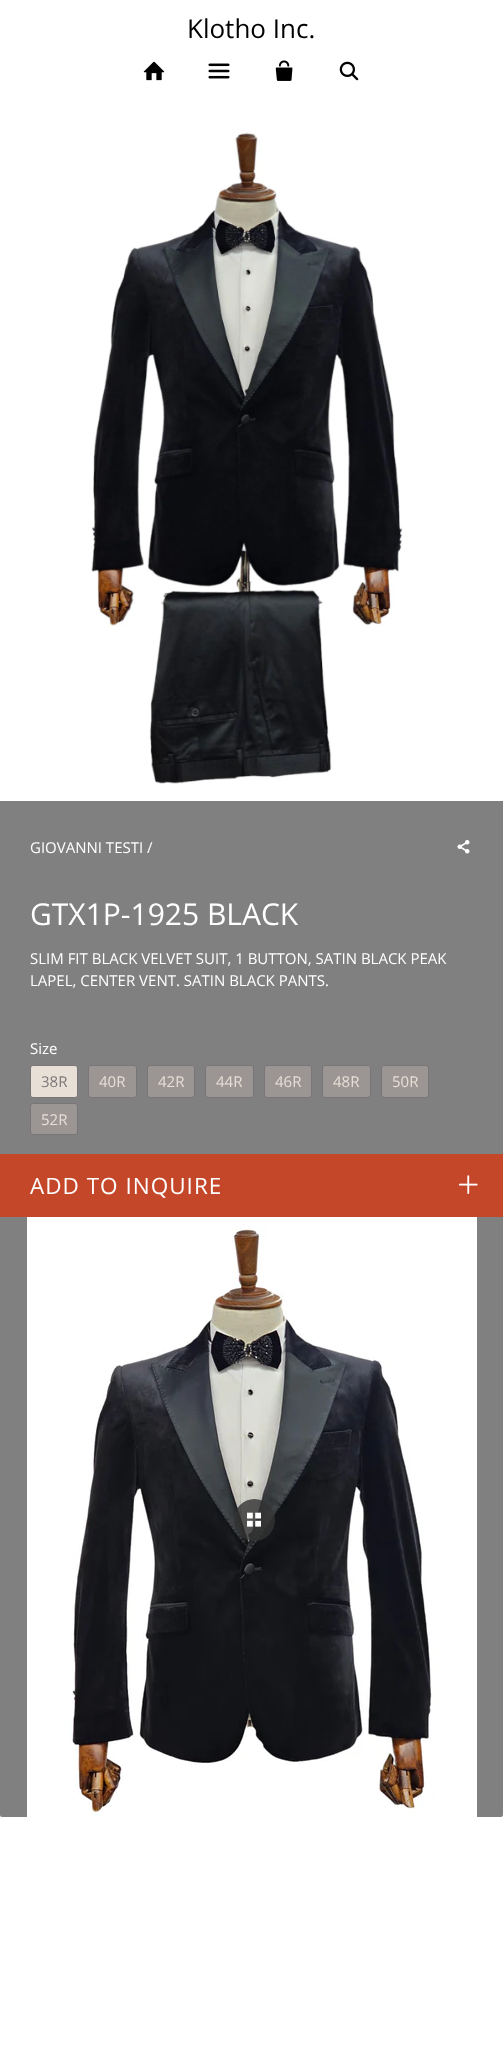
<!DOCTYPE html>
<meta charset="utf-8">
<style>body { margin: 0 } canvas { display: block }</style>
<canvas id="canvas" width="503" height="2055"></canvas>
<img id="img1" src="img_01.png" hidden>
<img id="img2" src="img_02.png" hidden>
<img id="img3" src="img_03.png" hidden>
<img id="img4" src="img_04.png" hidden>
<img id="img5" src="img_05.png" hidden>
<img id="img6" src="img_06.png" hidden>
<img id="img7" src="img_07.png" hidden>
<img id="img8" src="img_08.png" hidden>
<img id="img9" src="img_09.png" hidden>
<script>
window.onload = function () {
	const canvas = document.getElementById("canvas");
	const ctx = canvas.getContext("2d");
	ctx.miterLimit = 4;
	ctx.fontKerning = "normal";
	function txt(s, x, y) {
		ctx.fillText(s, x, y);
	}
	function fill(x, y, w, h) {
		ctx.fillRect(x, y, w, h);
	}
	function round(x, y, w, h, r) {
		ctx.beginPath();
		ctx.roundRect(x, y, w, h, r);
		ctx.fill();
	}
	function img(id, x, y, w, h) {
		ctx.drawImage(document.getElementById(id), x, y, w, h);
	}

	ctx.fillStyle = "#FFFFFF";
	fill(0, 0, 503, 2055);
	img("img1", 143, 61, 22, 20);
	img("img2", 208, 63, 22, 16);
	img("img3", 275, 60, 18, 21);
	img("img4", 339, 61, 20, 20);
	img("img5", 0, 130, 503, 671);
	ctx.fillStyle = "#808080";
	fill(0, 801, 503, 353);
	img("img6", 457, 840, 13, 14);
	ctx.fillStyle = "#E8E0D6";
	ctx.beginPath();
	ctx.roundRect(30.5, 1065.5, 47, 32, 2.5);
	ctx.fill();
	ctx.strokeStyle = "#7A7578";
	ctx.stroke();
	ctx.fillStyle = "#9B9594";
	ctx.beginPath();
	ctx.roundRect(88.5, 1065.5, 48, 32, 2.5);
	ctx.fill();
	ctx.stroke();
	ctx.beginPath();
	ctx.roundRect(147.5, 1065.5, 47, 32, 2.5);
	ctx.fill();
	ctx.stroke();
	ctx.beginPath();
	ctx.roundRect(205.5, 1065.5, 48, 32, 2.5);
	ctx.fill();
	ctx.stroke();
	ctx.beginPath();
	ctx.roundRect(264.5, 1065.5, 47, 32, 2.5);
	ctx.fill();
	ctx.stroke();
	ctx.beginPath();
	ctx.roundRect(322.5, 1065.5, 48, 32, 2.5);
	ctx.fill();
	ctx.stroke();
	ctx.beginPath();
	ctx.roundRect(381.5, 1065.5, 47, 32, 2.5);
	ctx.fill();
	ctx.stroke();
	ctx.beginPath();
	ctx.roundRect(30.5, 1103.5, 47, 31, 2.5);
	ctx.fill();
	ctx.stroke();
	ctx.fillStyle = "#C5472A";
	fill(0, 1154, 503, 63);
	img("img7", 458, 1175, 20, 19);
	ctx.fillStyle = "#808080";
	ctx.beginPath();
	ctx.roundRect(0, 1217, 503, 600, [0, 0, 2, 2]);
	ctx.fill();
	img("img8", 27, 1217, 450, 600);
	ctx.fillStyle = "rgba(51, 51, 51, 0.8)";
	round(234, 1499, 41, 42, 20.5);
	img("img9", 247, 1512, 14, 15);
	ctx.font = "26px Open Sans";
	ctx.fillStyle = "#000000";
	txt("Klotho Inc.", 187, 38);
	ctx.font = "15px Open Sans";
	ctx.fillStyle = "#FFFFFF";
	txt("GIOVANNI TESTI /", 30, 853);
	ctx.font = "30px Open Sans";
	txt("GTX1P-1925 BLACK", 30, 925);
	ctx.font = "15px Open Sans";
	txt("SLIM FIT BLACK VELVET SUIT, 1 BUTTON, SATIN BLACK PEAK", 30, 964);
	txt("LAPEL, CENTER VENT. SATIN BLACK PANTS.", 30, 986);
	txt("Size", 30, 1054);
	ctx.fillStyle = "#7A7578";
	txt("38R", 41, 1087);
	ctx.fillStyle = "#E8E0D6";
	txt("40R", 99, 1087);
	txt("42R", 158, 1087);
	txt("44R", 216, 1087);
	txt("46R", 275, 1087);
	txt("48R", 333, 1087);
	txt("50R", 392, 1087);
	txt("52R", 41, 1125);
	ctx.letterSpacing = "1px";
	ctx.font = "22.5px Open Sans";
	ctx.fillStyle = "#FFFFFF";
	txt("ADD TO INQUIRE", 30, 1194);
};
</script>
